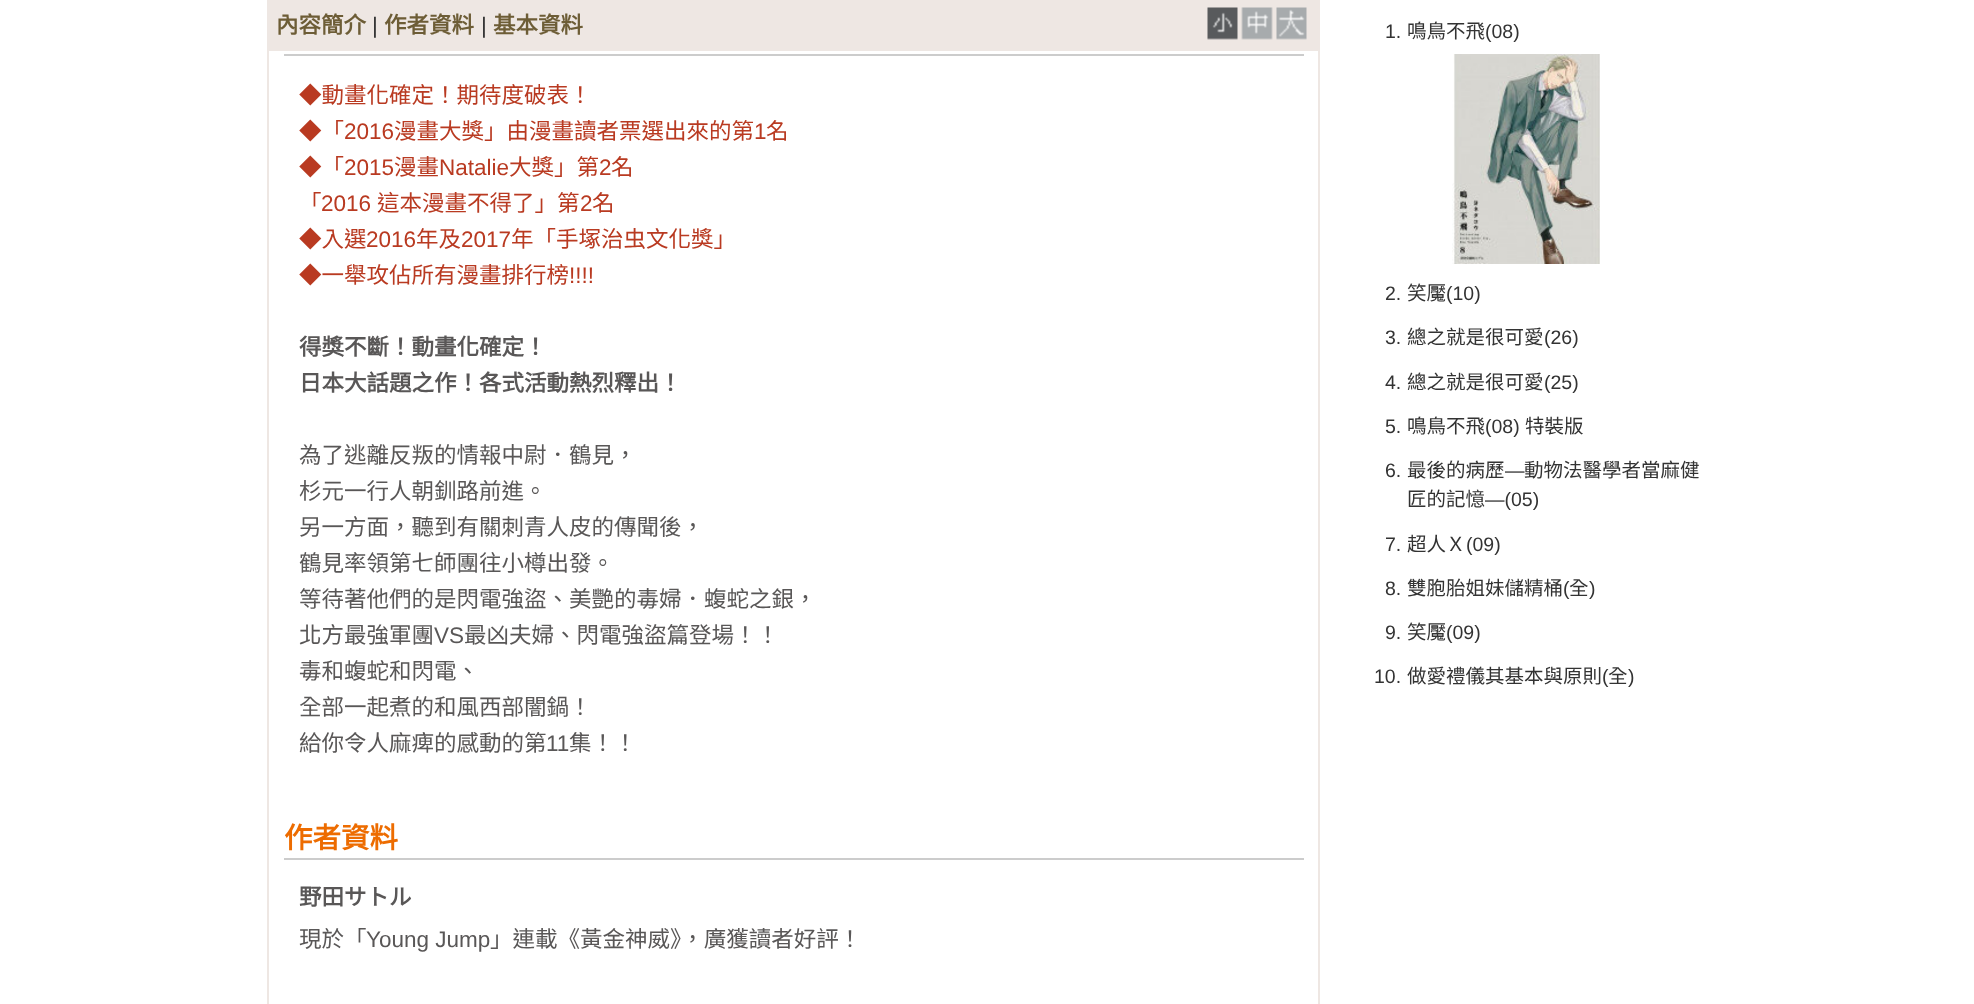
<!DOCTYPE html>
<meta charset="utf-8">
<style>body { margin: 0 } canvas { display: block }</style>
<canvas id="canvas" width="1974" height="1004"></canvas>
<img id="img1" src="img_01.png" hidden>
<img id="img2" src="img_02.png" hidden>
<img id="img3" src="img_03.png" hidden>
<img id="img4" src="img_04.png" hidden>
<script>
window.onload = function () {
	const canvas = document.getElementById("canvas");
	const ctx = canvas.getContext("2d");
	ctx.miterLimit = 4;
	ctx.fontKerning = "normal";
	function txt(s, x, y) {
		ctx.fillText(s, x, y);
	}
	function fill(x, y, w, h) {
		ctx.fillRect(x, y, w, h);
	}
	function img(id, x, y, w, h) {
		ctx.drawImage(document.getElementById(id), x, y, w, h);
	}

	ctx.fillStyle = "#FFFFFF";
	fill(0, 0, 1974, 1004);
	ctx.strokeStyle = "#EEE7E3";
	ctx.lineWidth = 2;
	ctx.strokeRect(268, -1, 1051, 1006);
	ctx.fillStyle = "#EEE7E3";
	fill(269, 0, 1049, 51);
	img("img1", 1207, 7, 31, 33);
	img("img2", 1241, 7, 32, 33);
	img("img3", 1276, 7, 31, 33);
	ctx.fillStyle = "#CCCCCC";
	fill(284, 54, 1020, 2);
	fill(284, 858, 1020, 2);
	img("img4", 1452, 54, 148, 210);
	ctx.font = "bold 22.5px Noto Sans CJK TC";
	ctx.fillStyle = "#6D5D36";
	txt("內容簡介", 276, 33);
	ctx.font = "22.5px Liberation Sans";
	ctx.fillStyle = "#333333";
	txt("|", 372, 33);
	ctx.font = "bold 22.5px Noto Sans CJK TC";
	ctx.fillStyle = "#6D5D36";
	txt("作者資料", 384, 33);
	ctx.font = "22.5px Liberation Sans";
	ctx.fillStyle = "#333333";
	txt("|", 481, 33);
	ctx.font = "bold 22.5px Noto Sans CJK TC";
	ctx.fillStyle = "#6D5D36";
	txt("基本資料", 493, 33);
	ctx.font = "22.5px Noto Sans CJK TC";
	ctx.fillStyle = "#B93A21";
	txt("◆動畫化確定！期待度破表！", 299, 103);
	txt("◆「", 299, 139);
	ctx.font = "22.5px Liberation Sans";
	txt("2016", 344, 139);
	ctx.font = "22.5px Noto Sans CJK TC";
	txt("漫畫大獎」由漫畫讀者票選出來的第", 394, 139);
	ctx.font = "22.5px Liberation Sans";
	txt("1", 754, 139);
	ctx.font = "22.5px Noto Sans CJK TC";
	txt("名", 766, 139);
	txt("◆「", 299, 175);
	ctx.font = "22.5px Liberation Sans";
	txt("2015", 344, 175);
	ctx.font = "22.5px Noto Sans CJK TC";
	txt("漫畫", 394, 175);
	ctx.font = "22.5px Liberation Sans";
	txt("Natalie", 439, 175);
	ctx.font = "22.5px Noto Sans CJK TC";
	txt("大獎」第", 509, 175);
	ctx.font = "22.5px Liberation Sans";
	txt("2", 599, 175);
	ctx.font = "22.5px Noto Sans CJK TC";
	txt("名", 611, 175);
	txt("「", 299, 211);
	ctx.font = "22.5px Liberation Sans";
	txt("2016", 321, 211);
	ctx.font = "22.5px Noto Sans CJK TC";
	txt("這本漫畫不得了」第", 377, 211);
	ctx.font = "22.5px Liberation Sans";
	txt("2", 580, 211);
	ctx.font = "22.5px Noto Sans CJK TC";
	txt("名", 592, 211);
	txt("◆入選", 299, 247);
	ctx.font = "22.5px Liberation Sans";
	txt("2016", 366, 247);
	ctx.font = "22.5px Noto Sans CJK TC";
	txt("年及", 416, 247);
	ctx.font = "22.5px Liberation Sans";
	txt("2017", 461, 247);
	ctx.font = "22.5px Noto Sans CJK TC";
	txt("年「手塚治虫文化獎」", 511, 247);
	txt("◆一舉攻佔所有漫畫排行榜", 299, 283);
	ctx.font = "22.5px Liberation Sans";
	txt("!!!!", 569, 283);
	ctx.font = "bold 22.5px Noto Sans CJK TC";
	ctx.fillStyle = "#595757";
	txt("得獎不斷！動畫化確定！", 299, 355);
	txt("日本大話題之作！各式活動熱烈釋出！", 299, 391);
	ctx.font = "22.5px Noto Sans CJK TC";
	txt("為了逃離反叛的情報中尉．鶴見，", 299, 463);
	txt("杉元一行人朝釧路前進。", 299, 499);
	txt("另一方面，聽到有關刺青人皮的傳聞後，", 299, 535);
	txt("鶴見率領第七師團往小樽出發。", 299, 571);
	txt("等待著他們的是閃電強盜、美艷的毒婦．蝮蛇之銀，", 299, 607);
	txt("北方最強軍團", 299, 643);
	ctx.font = "22.5px Liberation Sans";
	txt("VS", 434, 643);
	ctx.font = "22.5px Noto Sans CJK TC";
	txt("最凶夫婦、閃電強盜篇登場！！", 464, 643);
	txt("毒和蝮蛇和閃電、", 299, 679);
	txt("全部一起煮的和風西部闇鍋！", 299, 715);
	txt("給你令人麻痺的感動的第", 299, 751);
	ctx.font = "22.5px Liberation Sans";
	txt("11", 546, 751);
	ctx.font = "22.5px Noto Sans CJK TC";
	txt("集！！", 569, 751);
	ctx.font = "bold 28.5px Noto Sans CJK TC";
	ctx.fillStyle = "#ED6C00";
	txt("作者資料", 284, 848);
	ctx.font = "bold 22.5px Noto Sans CJK TC";
	ctx.fillStyle = "#595757";
	txt("野田サトル", 299, 905);
	ctx.font = "22.5px Noto Sans CJK TC";
	txt("現於「", 299, 947);
	ctx.font = "22.5px Liberation Sans";
	txt("Young Jump", 366, 947);
	ctx.font = "22.5px Noto Sans CJK TC";
	txt("」連載《黃金神威》，廣獲讀者好評！", 490, 947);
	ctx.font = "19.5px Liberation Sans";
	ctx.fillStyle = "#333333";
	txt("1.", 1385, 38);
	ctx.font = "19.5px Noto Sans CJK TC";
	txt("鳴鳥不飛", 1407, 38);
	ctx.font = "19.5px Liberation Sans";
	txt("(08)", 1485, 38);
	txt("2.", 1385, 300);
	ctx.font = "19.5px Noto Sans CJK TC";
	txt("笑魘", 1407, 300);
	ctx.font = "19.5px Liberation Sans";
	txt("(10)", 1446, 300);
	txt("3.", 1385, 344);
	ctx.font = "19.5px Noto Sans CJK TC";
	txt("總之就是很可愛", 1407, 344);
	ctx.font = "19.5px Liberation Sans";
	txt("(26)", 1544, 344);
	txt("4.", 1385, 389);
	ctx.font = "19.5px Noto Sans CJK TC";
	txt("總之就是很可愛", 1407, 389);
	ctx.font = "19.5px Liberation Sans";
	txt("(25)", 1544, 389);
	txt("5.", 1385, 433);
	ctx.font = "19.5px Noto Sans CJK TC";
	txt("鳴鳥不飛", 1407, 433);
	ctx.font = "19.5px Liberation Sans";
	txt("(08)", 1485, 433);
	ctx.font = "19.5px Noto Sans CJK TC";
	txt("特裝版", 1525, 433);
	ctx.font = "19.5px Liberation Sans";
	txt("6.", 1385, 477);
	ctx.font = "19.5px Noto Sans CJK TC";
	txt("最後的病歷", 1407, 477);
	ctx.font = "19.5px Liberation Sans";
	txt("—", 1505, 477);
	ctx.font = "19.5px Noto Sans CJK TC";
	txt("動物法醫學者當麻健", 1524, 477);
	txt("匠的記憶", 1407, 506);
	ctx.font = "19.5px Liberation Sans";
	txt("—(05)", 1485, 506);
	txt("7.", 1385, 551);
	ctx.font = "19.5px Noto Sans CJK TC";
	txt("超人Ｘ", 1407, 551);
	ctx.font = "19.5px Liberation Sans";
	txt("(09)", 1466, 551);
	txt("8.", 1385, 595);
	ctx.font = "19.5px Noto Sans CJK TC";
	txt("雙胞胎姐妹儲精桶", 1407, 595);
	ctx.font = "19.5px Liberation Sans";
	txt("(", 1563, 595);
	ctx.font = "19.5px Noto Sans CJK TC";
	txt("全", 1569, 595);
	ctx.font = "19.5px Liberation Sans";
	txt(")", 1589, 595);
	txt("9.", 1385, 639);
	ctx.font = "19.5px Noto Sans CJK TC";
	txt("笑魘", 1407, 639);
	ctx.font = "19.5px Liberation Sans";
	txt("(09)", 1446, 639);
	txt("10.", 1374, 683);
	ctx.font = "19.5px Noto Sans CJK TC";
	txt("做愛禮儀其基本與原則", 1407, 683);
	ctx.font = "19.5px Liberation Sans";
	txt("(", 1602, 683);
	ctx.font = "19.5px Noto Sans CJK TC";
	txt("全", 1608, 683);
	ctx.font = "19.5px Liberation Sans";
	txt(")", 1628, 683);
};
</script>
